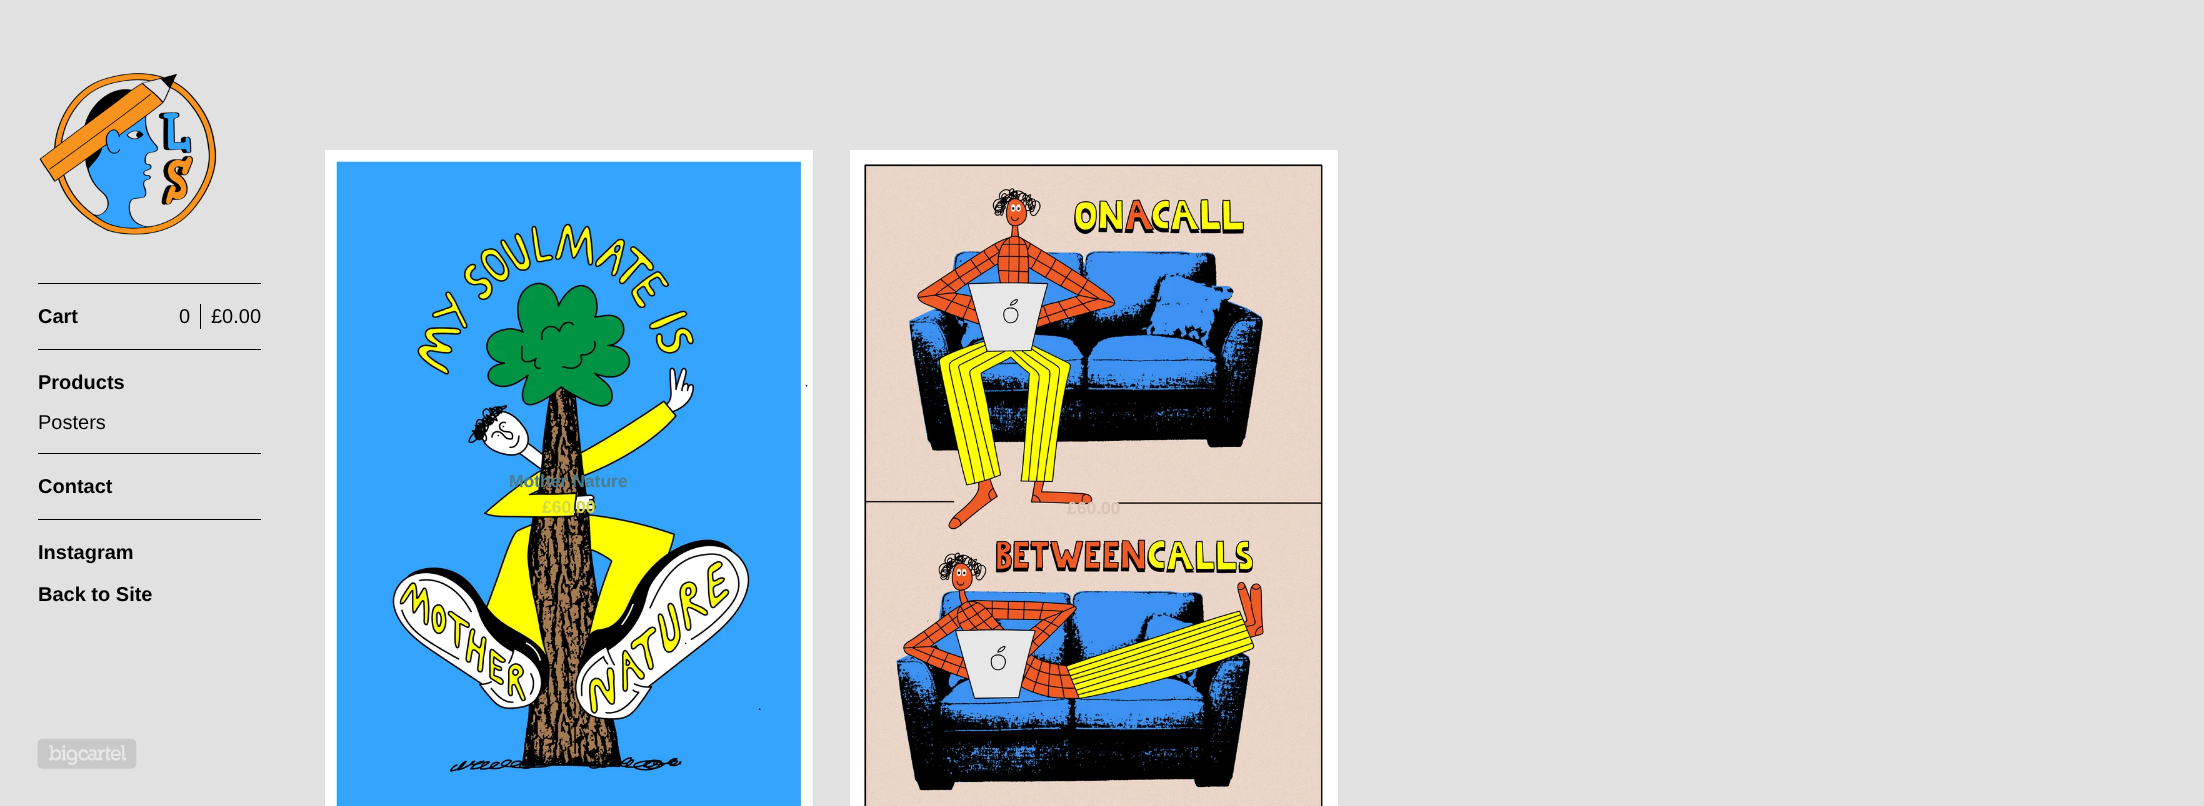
<!DOCTYPE html>
<meta charset="utf-8">
<style>body { margin: 0 } canvas { display: block }</style>
<canvas id="canvas" width="2204" height="806"></canvas>
<img id="img1" src="img_01.png" hidden>
<img id="img2" src="img_02.png" hidden>
<img id="img3" src="img_03.png" hidden>
<img id="img4" src="img_04.png" hidden>
<script>
window.onload = function () {
	const canvas = document.getElementById("canvas");
	const ctx = canvas.getContext("2d");
	ctx.miterLimit = 4;
	ctx.fontKerning = "normal";
	function txt(s, x, y) {
		ctx.fillText(s, x, y);
	}
	function fill(x, y, w, h) {
		ctx.fillRect(x, y, w, h);
	}
	function img(id, x, y, w, h) {
		ctx.drawImage(document.getElementById(id), x, y, w, h);
	}

	ctx.fillStyle = "#E1E1E1";
	fill(0, 0, 2204, 806);
	img("img1", 39, 73, 178, 162);
	ctx.fillStyle = "#000000";
	fill(38, 283, 223, 1);
	fill(200, 304, 1, 25);
	fill(38, 349, 223, 1);
	fill(38, 453, 223, 1);
	fill(38, 519, 223, 1);
	img("img2", 37, 738, 100, 31);
	img("img3", 325, 150, 488, 656);
	img("img4", 850, 150, 488, 656);
	ctx.font = "bold 20px Liberation Sans";
	txt("Cart", 38, 323);
	ctx.font = "20px Liberation Sans";
	txt("0", 179, 323);
	txt("£0.00", 211, 323);
	ctx.font = "bold 20px Liberation Sans";
	txt("Products", 38, 389);
	ctx.font = "20px Liberation Sans";
	txt("Posters", 38, 429);
	ctx.font = "bold 20px Liberation Sans";
	txt("Contact", 38, 493);
	txt("Instagram", 38, 559);
	txt("Back to Site", 38, 601);
	ctx.font = "bold 17.5px Liberation Sans";
	ctx.fillStyle = "#4B7E8A";
	txt("Mother Nature", 509, 487);
	ctx.fillStyle = "#D5D943";
	txt("£60.00", 542, 513);
	ctx.fillStyle = "#DBC2B4";
	txt("£60.00", 1067, 514);
};
</script>
